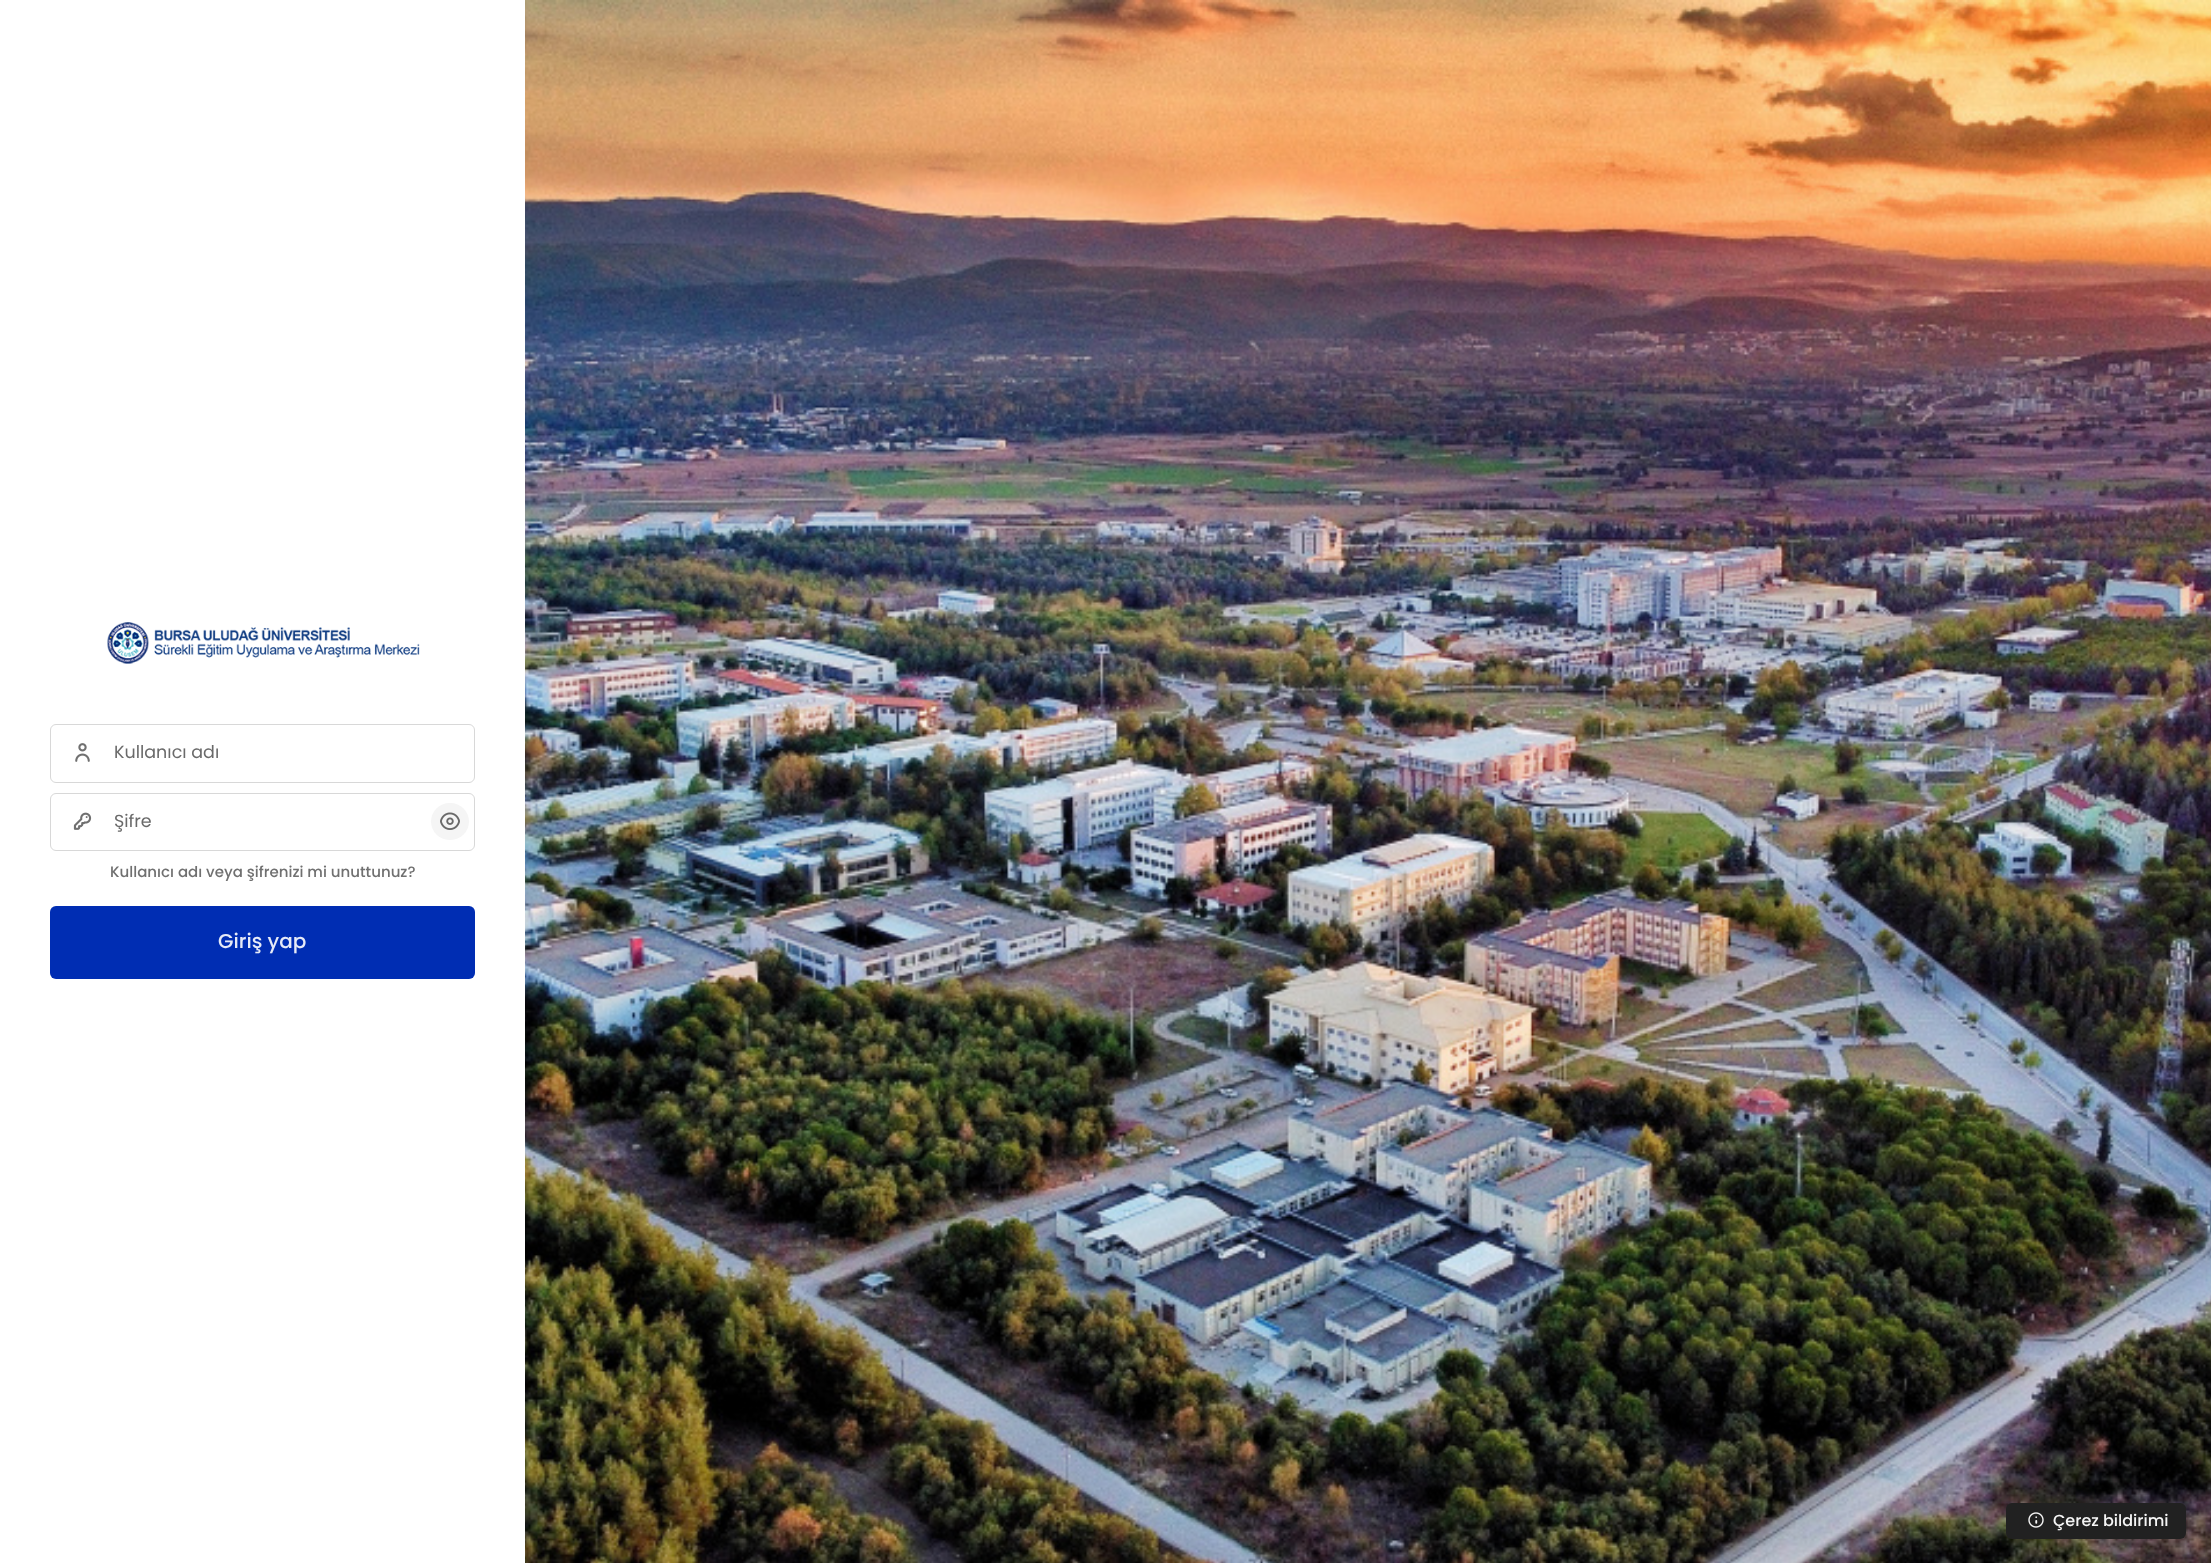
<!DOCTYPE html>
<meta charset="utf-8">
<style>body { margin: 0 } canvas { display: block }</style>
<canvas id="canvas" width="2211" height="1563"></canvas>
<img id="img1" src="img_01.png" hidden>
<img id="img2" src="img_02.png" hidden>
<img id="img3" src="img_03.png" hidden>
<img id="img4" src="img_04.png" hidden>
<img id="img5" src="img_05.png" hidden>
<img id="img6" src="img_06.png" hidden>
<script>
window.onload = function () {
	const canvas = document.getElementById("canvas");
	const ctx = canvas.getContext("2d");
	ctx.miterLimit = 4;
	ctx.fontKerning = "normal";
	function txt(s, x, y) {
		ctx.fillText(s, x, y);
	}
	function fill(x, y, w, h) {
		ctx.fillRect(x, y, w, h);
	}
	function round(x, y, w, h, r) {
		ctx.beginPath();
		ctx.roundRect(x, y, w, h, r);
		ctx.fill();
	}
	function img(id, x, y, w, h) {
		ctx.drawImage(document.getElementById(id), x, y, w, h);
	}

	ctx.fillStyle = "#FFFFFF";
	fill(0, 0, 2211, 1563);
	img("img1", 525, 0, 1686, 1563);
	img("img2", 107, 622, 313, 42);
	ctx.beginPath();
	ctx.roundRect(50.5, 724.5, 424, 58, 5.5);
	ctx.strokeStyle = "#D8D8D8";
	ctx.stroke();
	img("img3", 75, 743, 15, 19);
	ctx.beginPath();
	ctx.roundRect(50.5, 793.5, 424, 57, 5.5);
	ctx.stroke();
	img("img4", 73, 812, 19, 18);
	ctx.fillStyle = "#F5F5F5";
	round(431, 803, 38, 37, 18.5);
	img("img5", 440, 812, 20, 18);
	ctx.fillStyle = "#002DB3";
	round(50, 906, 425, 73, 6);
	ctx.fillStyle = "#212121";
	round(2006, 1503, 180, 36, 6);
	img("img6", 2028, 1512, 16, 16);
	ctx.font = "17.5px Poppins";
	ctx.fillStyle = "#6A6A6A";
	txt("Kullanıcı adı", 114, 758);
	txt("Şifre", 114, 827);
	ctx.font = "500 15px Poppins";
	ctx.fillStyle = "#707070";
	txt("Kullanıcı adı veya şifrenizi mi unuttunuz?", 110, 877);
	ctx.font = "500 20px Poppins";
	ctx.fillStyle = "#E6EAF7";
	txt("Giriş yap", 218, 948);
	ctx.font = "500 16px Poppins";
	ctx.fillStyle = "#F5F5F5";
	txt("Çerez bildirimi", 2053, 1526);
};
</script>
